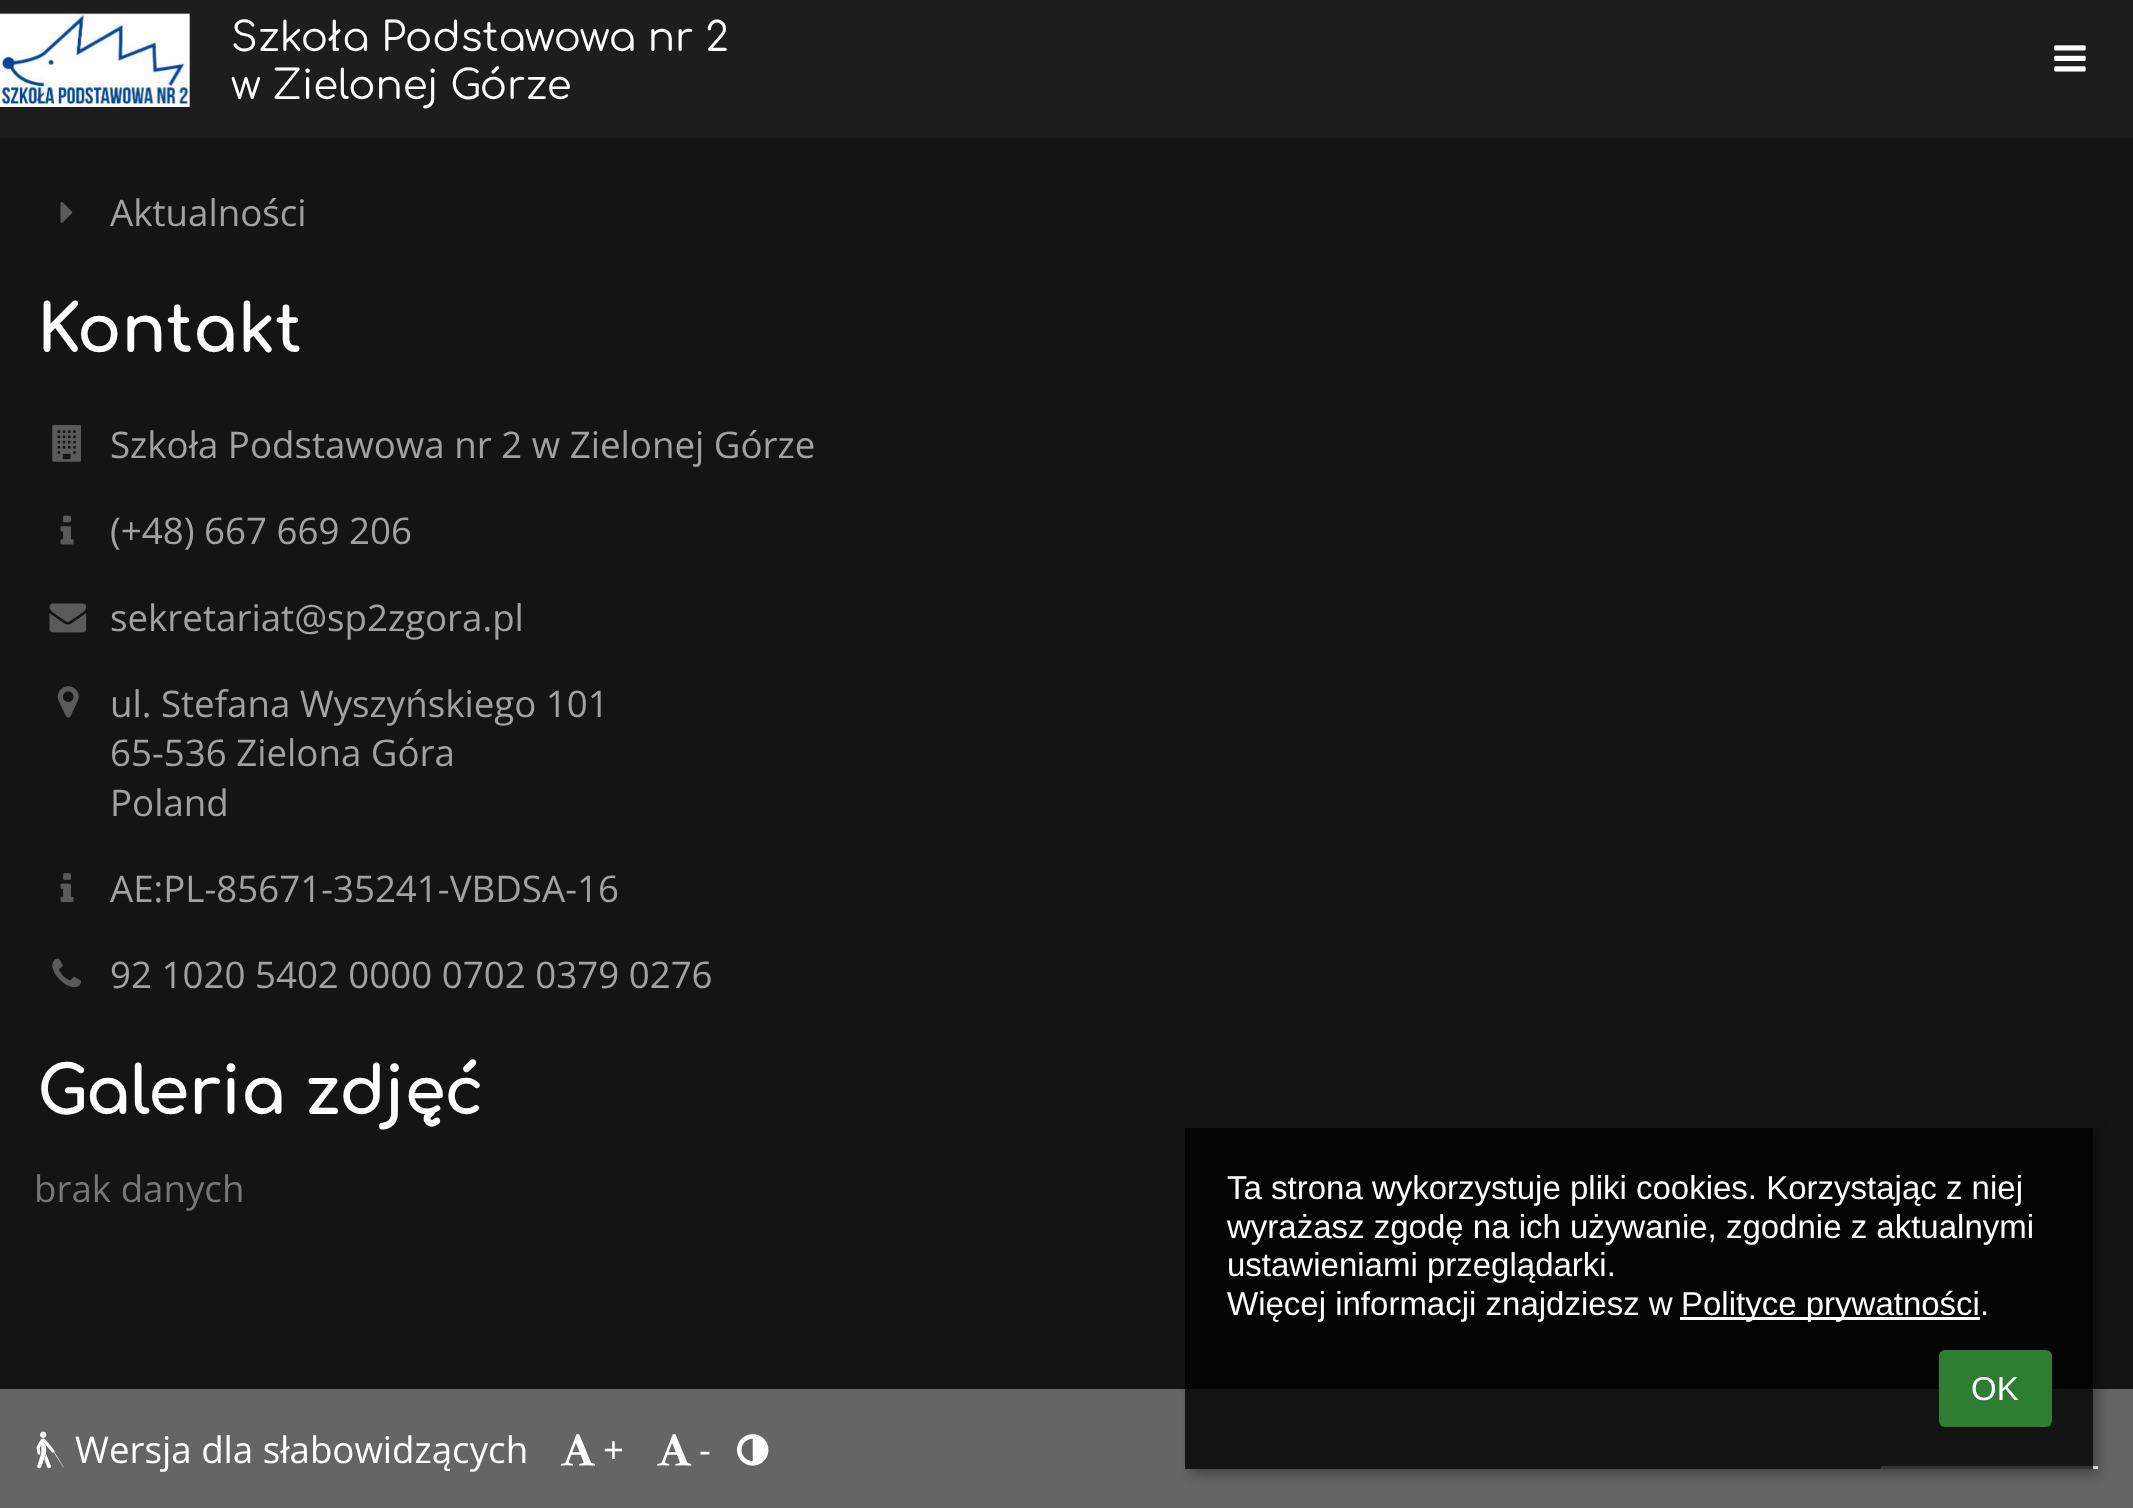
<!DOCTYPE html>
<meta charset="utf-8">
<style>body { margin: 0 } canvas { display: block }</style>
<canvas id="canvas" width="2133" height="1508"></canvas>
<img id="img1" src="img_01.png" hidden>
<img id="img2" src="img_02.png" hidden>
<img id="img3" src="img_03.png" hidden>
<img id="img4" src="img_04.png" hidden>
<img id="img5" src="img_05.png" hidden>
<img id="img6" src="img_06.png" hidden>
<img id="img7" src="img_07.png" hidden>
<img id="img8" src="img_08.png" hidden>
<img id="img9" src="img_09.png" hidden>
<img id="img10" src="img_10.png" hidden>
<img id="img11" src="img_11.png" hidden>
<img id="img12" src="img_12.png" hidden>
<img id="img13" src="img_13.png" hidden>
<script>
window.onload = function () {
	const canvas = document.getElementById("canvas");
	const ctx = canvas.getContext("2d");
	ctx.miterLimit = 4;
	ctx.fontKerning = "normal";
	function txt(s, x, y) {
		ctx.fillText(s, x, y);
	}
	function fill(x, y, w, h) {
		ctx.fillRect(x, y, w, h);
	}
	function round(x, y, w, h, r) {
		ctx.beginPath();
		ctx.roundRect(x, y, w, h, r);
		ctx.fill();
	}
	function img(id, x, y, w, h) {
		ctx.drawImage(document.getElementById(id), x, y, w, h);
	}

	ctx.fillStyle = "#141414";
	fill(0, 0, 2133, 1508);
	ctx.fillStyle = "#1D1D1D";
	fill(0, 0, 2133, 138);
	img("img1", 0, 13, 190, 94);
	img("img2", 2054, 45, 32, 27);
	img("img3", 60, 202, 13, 21);
	img("img4", 52, 425, 29, 37);
	img("img5", 60, 515, 14, 30);
	img("img6", 49, 603, 38, 30);
	img("img7", 57, 686, 22, 32);
	img("img8", 60, 873, 14, 29);
	img("img9", 52, 958, 29, 30);
	ctx.fillStyle = "#656565";
	fill(0, 1389, 2133, 119);
	img("img10", 36, 1431, 28, 38);
	img("img11", 561, 1434, 34, 32);
	img("img12", 657, 1434, 35, 32);
	img("img13", 737, 1434, 32, 32);
	ctx.fillStyle = "#FFFFFF";
	fill(1881, 1466, 217, 3);
	ctx.save();
	ctx.beginPath();
	ctx.moveTo(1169, 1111);
	ctx.lineTo(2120, 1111);
	ctx.lineTo(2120, 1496);
	ctx.lineTo(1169, 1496);
	ctx.closePath();
	ctx.moveTo(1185, 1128);
	ctx.lineTo(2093, 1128);
	ctx.lineTo(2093, 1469);
	ctx.lineTo(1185, 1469);
	ctx.closePath();
	ctx.clip("evenodd");
	ctx.fillStyle = "rgba(0, 0, 0, 0.35)";
	ctx.filter = "blur(7px)";
	ctx.beginPath();
	ctx.rect(1191, 1133, 907, 341);
	ctx.fill();
	ctx.filter = "none";
	ctx.restore();
	ctx.fillStyle = "rgba(0, 0, 0, 0.8)";
	fill(1185, 1128, 908, 341);
	ctx.fillStyle = "#FFFFFF";
	fill(1680, 1317, 300, 3);
	ctx.fillStyle = "#2E7D32";
	round(1939, 1350, 113, 77, 6);
	ctx.font = "40.25px Comfortaa";
	ctx.fillStyle = "#FFFFFF";
	txt("Szkoła Podstawowa nr 2", 231, 51);
	txt("w Zielonej Górze", 231, 99);
	ctx.font = "36.7px Open Sans";
	ctx.fillStyle = "#A1A1A1";
	txt("Aktualności", 110, 226);
	ctx.font = "bold 66px Comfortaa";
	ctx.fillStyle = "#FFFFFF";
	txt("Kontakt", 37, 352);
	ctx.font = "36.7px Open Sans";
	ctx.fillStyle = "#A1A1A1";
	txt("Szkoła Podstawowa nr 2 w Zielonej Górze", 110, 458);
	txt("(+48) 667 669 206", 110, 544);
	txt("sekretariat@sp2zgora.pl", 110, 631);
	txt("ul. Stefana Wyszyńskiego 101", 110, 717);
	txt("65-536 Zielona Góra", 110, 766);
	txt("Poland", 110, 816);
	txt("AE:PL-85671-35241-VBDSA-16", 110, 902);
	txt("92 1020 5402 0000 0702 0379 0276", 110, 988);
	ctx.font = "bold 66px Comfortaa";
	ctx.fillStyle = "#FFFFFF";
	txt("Galeria zdjęć", 37, 1114);
	ctx.font = "36.7px Open Sans";
	ctx.fillStyle = "#777777";
	txt("brak danych", 34, 1202);
	ctx.fillStyle = "#FFFFFF";
	txt("Wersja dla słabowidzących", 75, 1463);
	txt("+", 603, 1463);
	txt("-", 699, 1463);
	ctx.font = "33px Liberation Sans";
	txt("Ta strona wykorzystuje pliki cookies. Korzystając z niej", 1227, 1199);
	txt("wyrażasz zgodę na ich używanie, zgodnie z aktualnymi", 1227, 1238);
	txt("ustawieniami przeglądarki.", 1227, 1276);
	txt("Więcej informacji znajdziesz w", 1227, 1315);
	txt("Polityce prywatności.", 1681, 1315);
	txt("OK", 1971, 1400);
};
</script>
